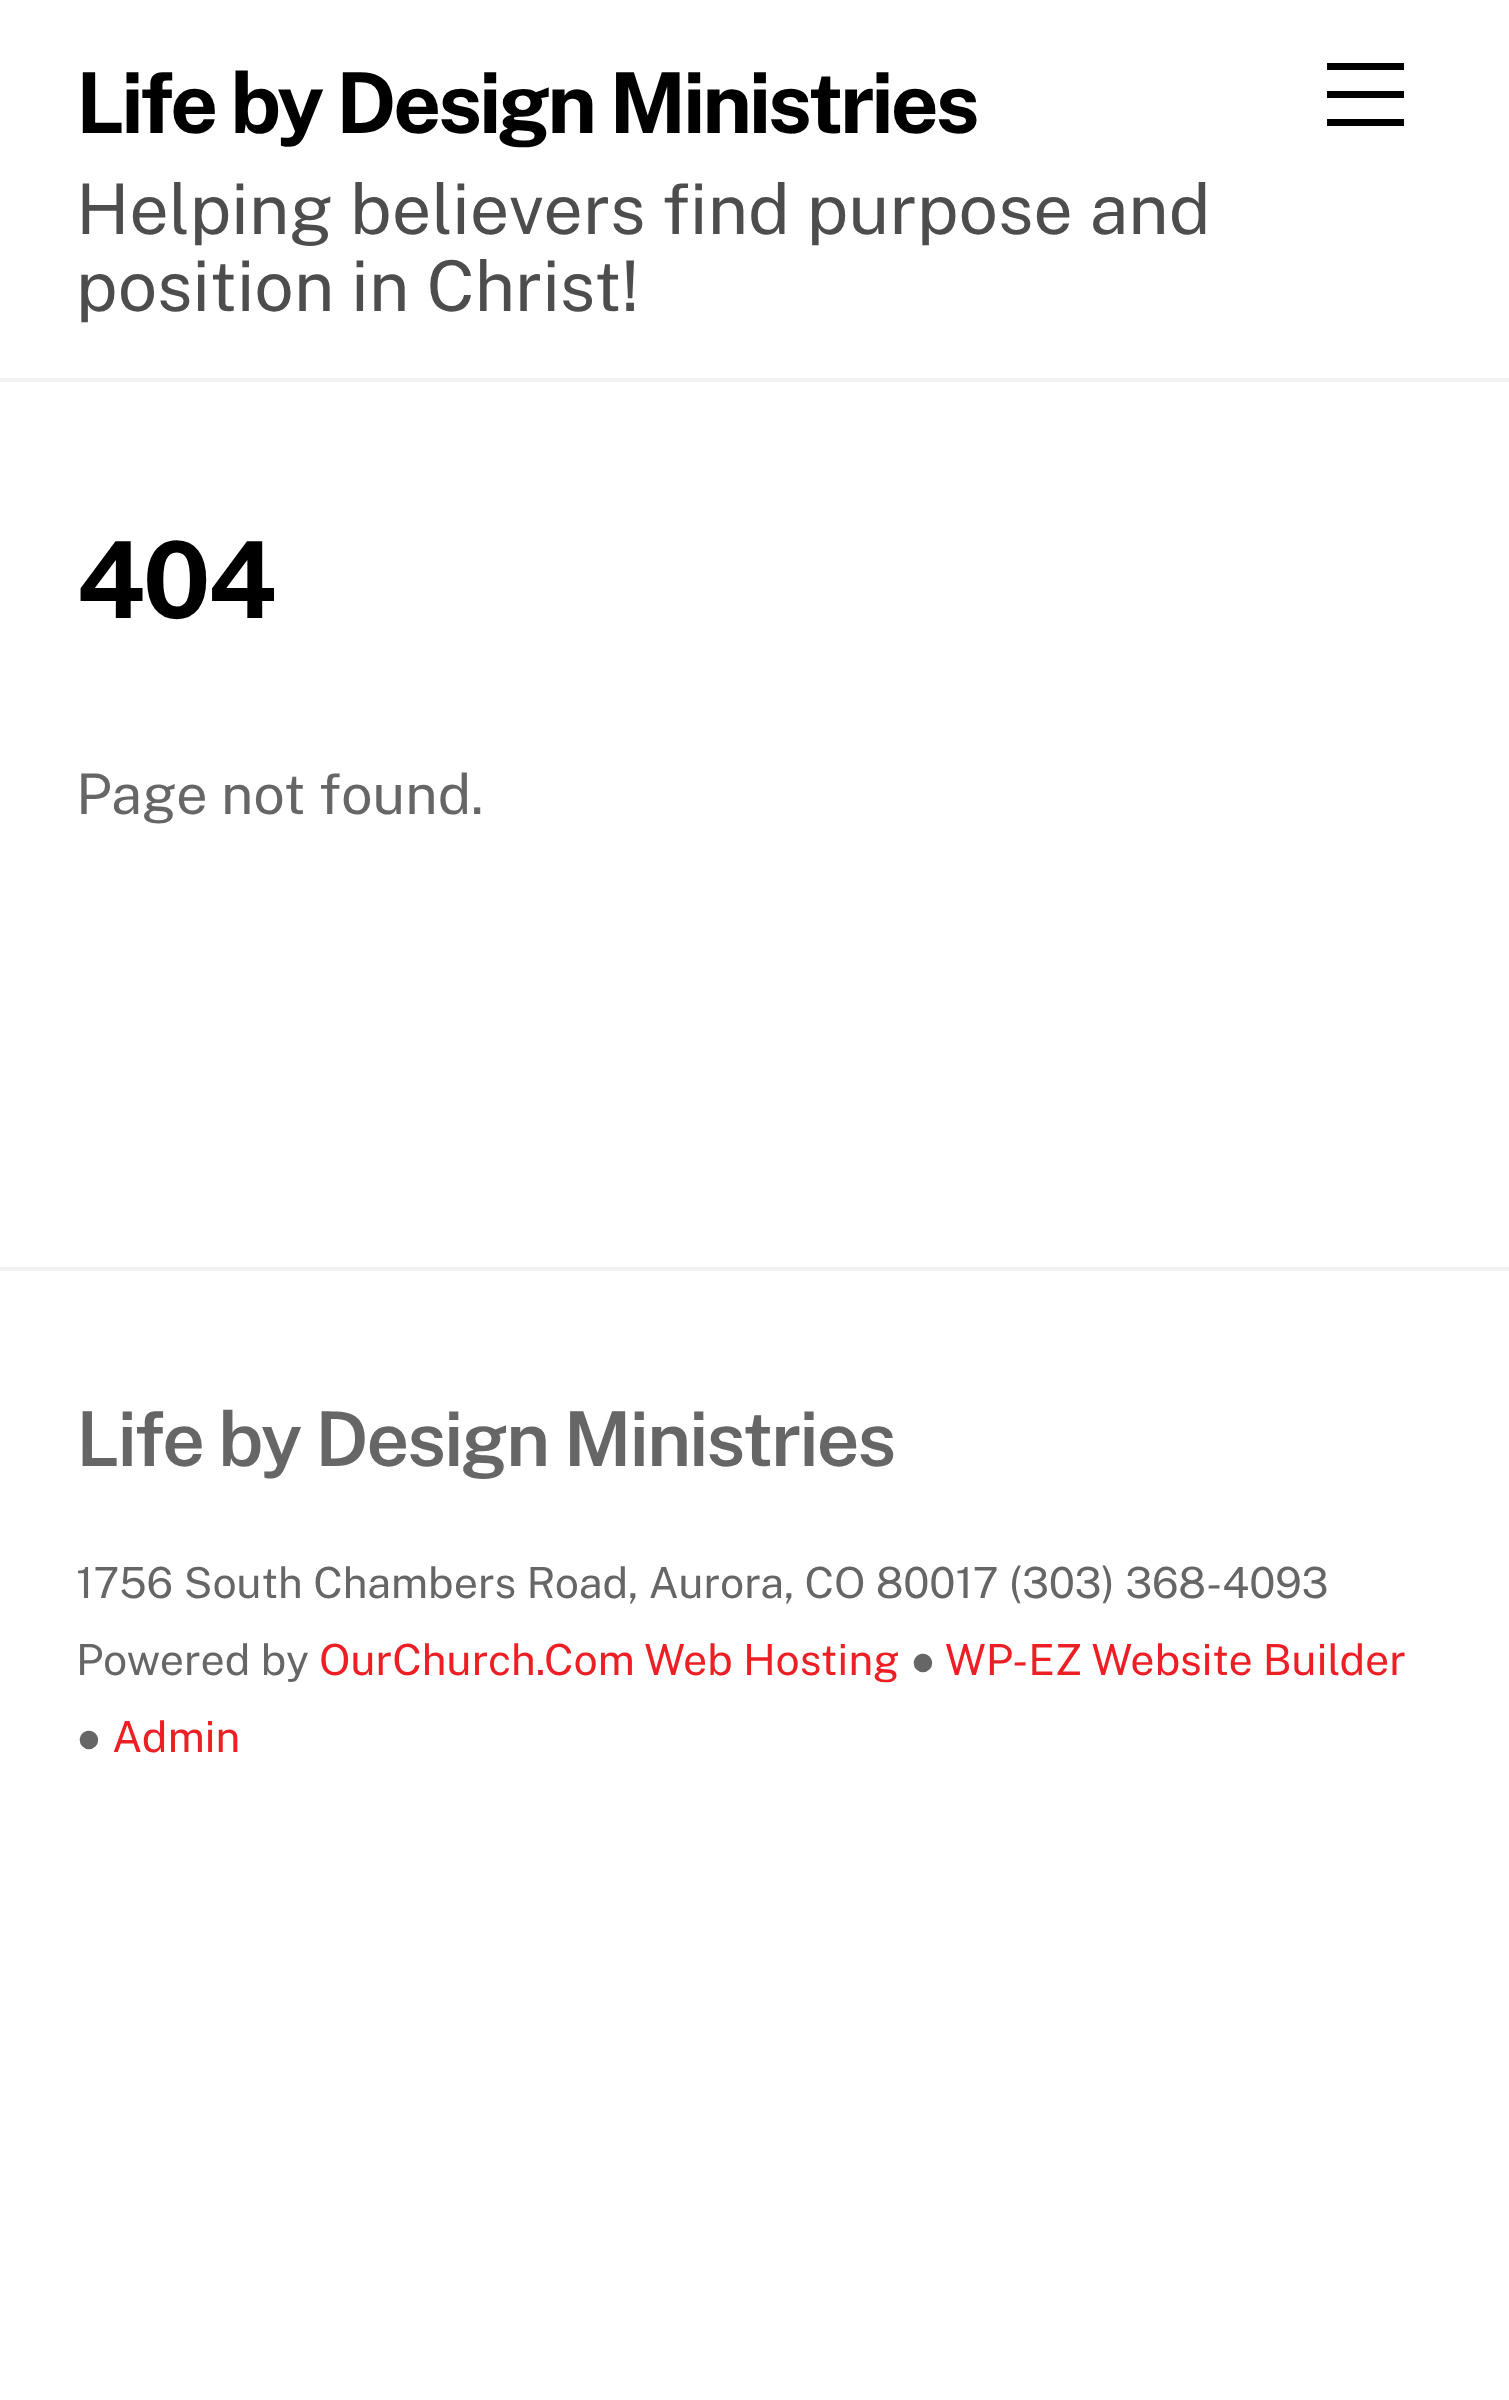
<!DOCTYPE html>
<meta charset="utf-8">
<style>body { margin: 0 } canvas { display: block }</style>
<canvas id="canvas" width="1509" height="2400"></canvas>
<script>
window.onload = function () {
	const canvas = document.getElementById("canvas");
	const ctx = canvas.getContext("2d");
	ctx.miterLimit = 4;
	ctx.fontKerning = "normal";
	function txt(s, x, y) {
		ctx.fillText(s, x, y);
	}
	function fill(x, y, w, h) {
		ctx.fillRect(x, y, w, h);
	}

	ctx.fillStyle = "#FFFFFF";
	fill(0, 0, 1509, 2400);
	ctx.fillStyle = "#F2F2F2";
	fill(0, 378, 1509, 4);
	ctx.fillStyle = "#000000";
	fill(1327, 119, 77, 7);
	fill(1327, 63, 77, 7);
	fill(1327, 91, 77, 7);
	ctx.fillStyle = "#F2F2F2";
	fill(0, 1267, 1509, 4);
	ctx.letterSpacing = "-3.35px";
	ctx.font = "bold 84px Public Sans";
	ctx.fillStyle = "#000000";
	txt("Life by Design Ministries", 76, 133);
	ctx.letterSpacing = "0px";
	ctx.font = "70px Public Sans";
	ctx.fillStyle = "#4D4D4D";
	txt("Helping believers find purpose and", 76, 234);
	txt("position in Christ!", 76, 311);
	ctx.letterSpacing = "-3px";
	ctx.font = "bold 106px Public Sans";
	ctx.fillStyle = "#000000";
	txt("404", 76, 618);
	ctx.letterSpacing = "0px";
	ctx.font = "56px Public Sans";
	ctx.fillStyle = "#666666";
	txt("Page not found.", 76, 814);
	ctx.letterSpacing = "-2.25px";
	ctx.font = "600 75.6px Public Sans";
	txt("Life by Design Ministries", 76, 1466);
	ctx.letterSpacing = "0px";
	ctx.font = "42.85px Public Sans";
	txt("1756 South Chambers Road, Aurora, CO 80017 (303) 368-4093", 76, 1598);
	txt("Powered by", 76, 1675);
	ctx.fillStyle = "#ED1E24";
	txt("OurChurch.Com Web Hosting", 319, 1675);
	ctx.font = "42.85px Liberation Sans";
	ctx.fillStyle = "#666666";
	txt("●", 910, 1675);
	ctx.font = "42.85px Public Sans";
	ctx.fillStyle = "#ED1E24";
	txt("WP-EZ Website Builder", 945, 1675);
	ctx.font = "42.85px Liberation Sans";
	ctx.fillStyle = "#666666";
	txt("●", 76, 1752);
	ctx.font = "42.85px Public Sans";
	ctx.fillStyle = "#ED1E24";
	txt("Admin", 112, 1752);
};
</script>
